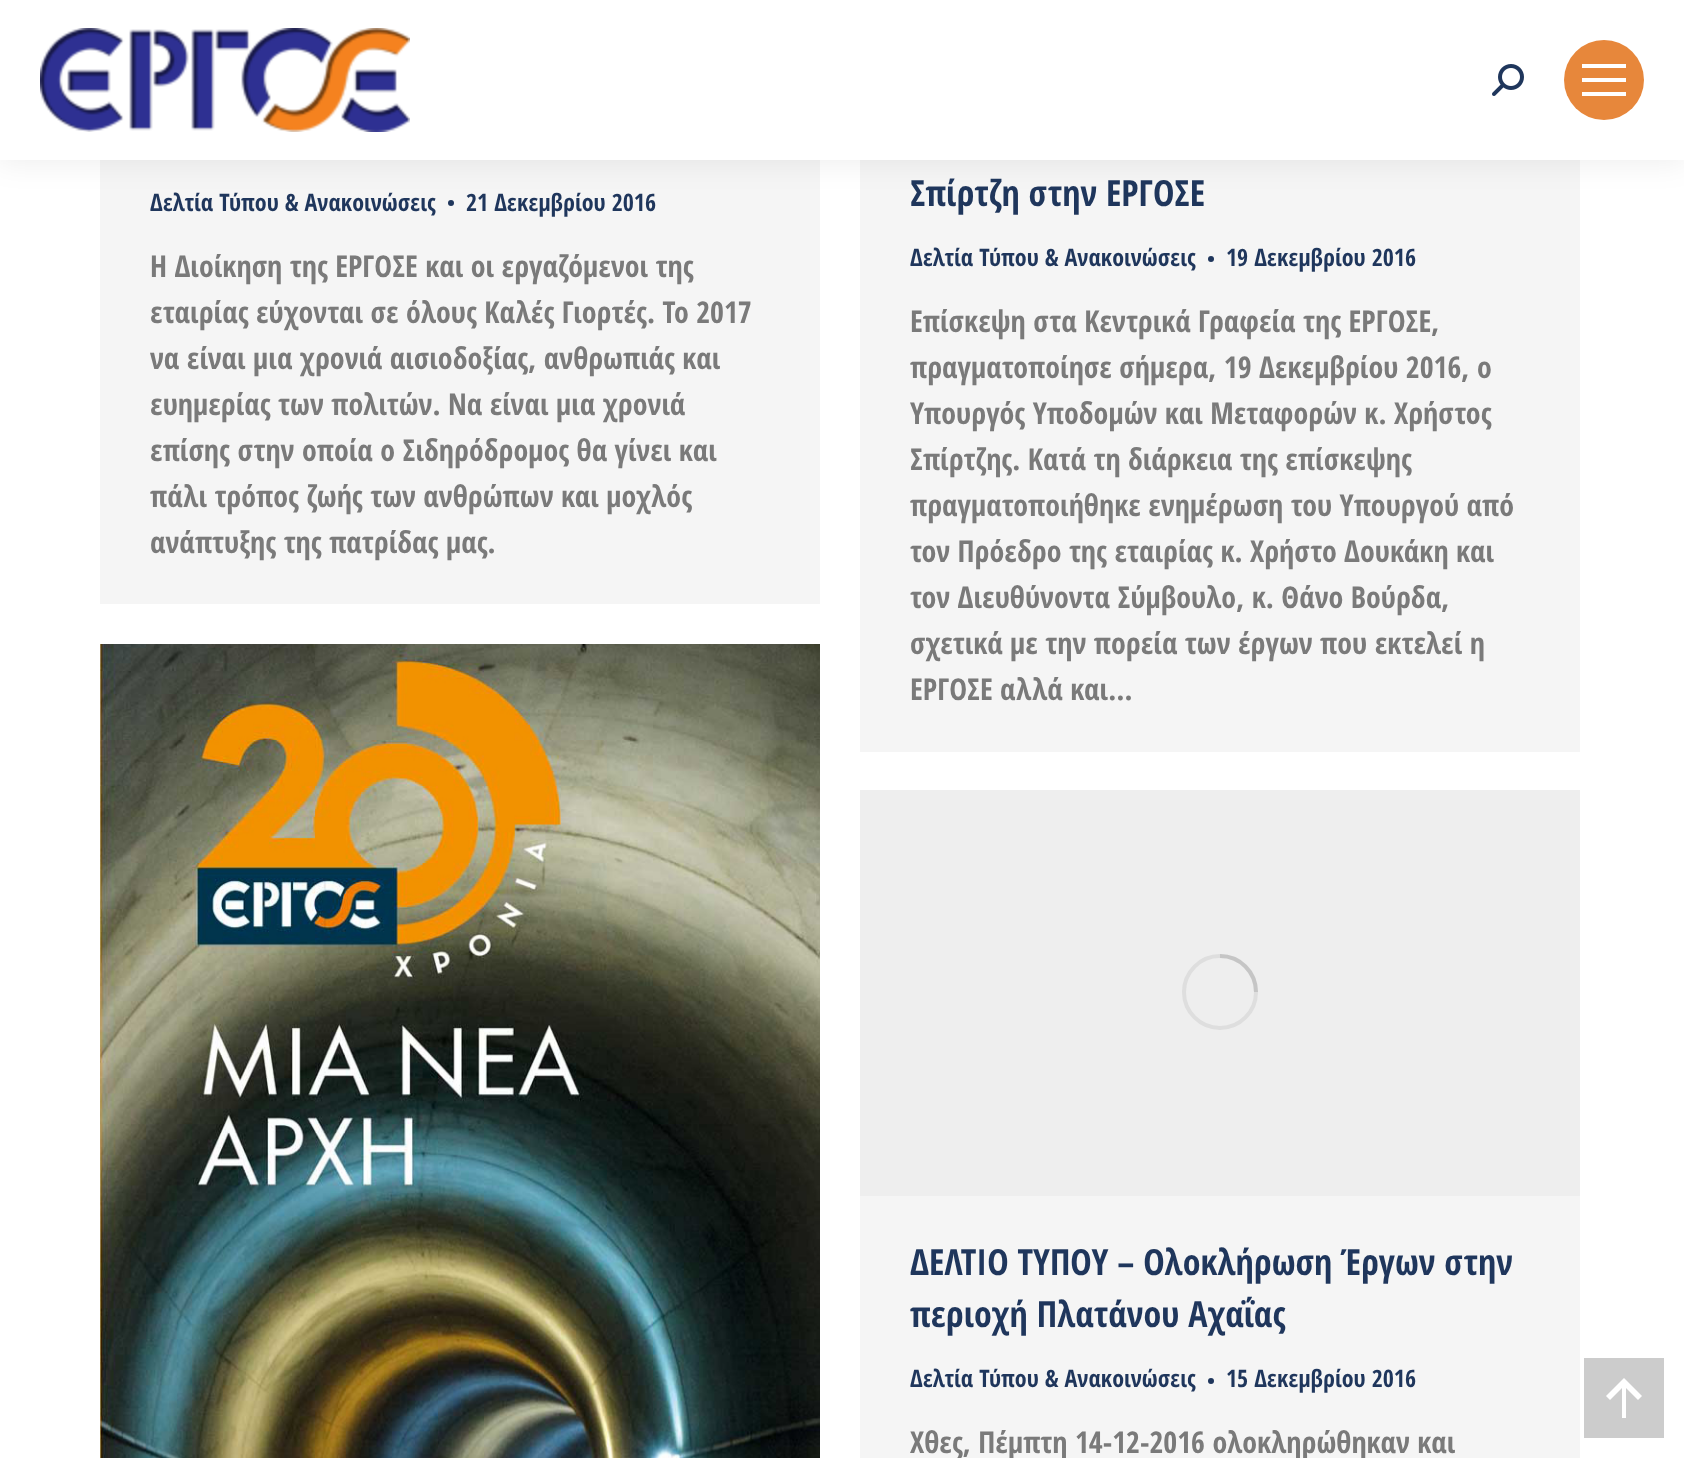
<!DOCTYPE html>
<meta charset="utf-8">
<style>body { margin: 0 } canvas { display: block }</style>
<canvas id="canvas" width="1684" height="1458"></canvas>
<img id="img1" src="img_01.png" hidden>
<img id="img2" src="img_02.png" hidden>
<img id="img3" src="img_03.png" hidden>
<script>
window.onload = function () {
	const canvas = document.getElementById("canvas");
	const ctx = canvas.getContext("2d");
	ctx.miterLimit = 4;
	ctx.fontKerning = "normal";
	function txt(s, x, y) {
		ctx.fillText(s, x, y);
	}
	function fill(x, y, w, h) {
		ctx.fillRect(x, y, w, h);
	}
	function img(id, x, y, w, h) {
		ctx.drawImage(document.getElementById(id), x, y, w, h);
	}

	ctx.fillStyle = "#FFFFFF";
	fill(0, 0, 1684, 1458);
	ctx.fillStyle = "#F5F5F5";
	fill(100, 160, 720, 444);
	ctx.fillStyle = "#1F365C";
	ctx.beginPath();
	ctx.arc(451, 203, 3, 0, Math.PI * 2);
	ctx.fill();
	ctx.fillStyle = "#F5F5F5";
	fill(860, 160, 720, 592);
	ctx.fillStyle = "rgba(0, 0, 0, 0.07)";
	ctx.filter = "blur(15px)";
	ctx.beginPath();
	ctx.rect(-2, -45, 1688, 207);
	ctx.fill();
	ctx.filter = "none";
	ctx.fillStyle = "#FFFFFF";
	fill(0, 0, 1684, 160);
	img("img1", 40, 28, 370, 104);
	img("img2", 1492, 64, 32, 32);
	ctx.fillStyle = "#E7873B";
	ctx.beginPath();
	ctx.arc(1604, 80, 40, 0, Math.PI * 2);
	ctx.fill();
	ctx.fillStyle = "#FFFFFF";
	fill(1582, 64, 44, 4);
	fill(1582, 78, 44, 4);
	fill(1582, 92, 44, 4);
	ctx.fillStyle = "#1F365C";
	ctx.beginPath();
	ctx.arc(1211, 259, 3, 0, Math.PI * 2);
	ctx.fill();
	img("img3", 100, 644, 720, 814);
	ctx.fillStyle = "#F5F5F5";
	fill(860, 1196, 720, 262);
	ctx.fillStyle = "#EEEEEE";
	fill(860, 790, 720, 406);
	ctx.beginPath();
	ctx.arc(1220, 992, 36, 0, Math.PI * 2);
	ctx.strokeStyle = "#DEDEDE";
	ctx.lineWidth = 4;
	ctx.stroke();
	ctx.beginPath();
	ctx.moveTo(1256, 992);
	ctx.bezierCurveTo(1256, 972, 1240, 956, 1220, 956);
	ctx.strokeStyle = "rgba(122, 122, 122, 0.25)";
	ctx.stroke();
	ctx.fillStyle = "#1F365C";
	ctx.beginPath();
	ctx.arc(1211, 1381, 3, 0, Math.PI * 2);
	ctx.fill();
	ctx.fillStyle = "#CCCCCC";
	fill(1584, 1358, 80, 80);
	ctx.fillStyle = "#FFFFFF";
	ctx.beginPath();
	ctx.moveTo(1606, 1396);
	ctx.lineTo(1610, 1400);
	ctx.lineTo(1622, 1388);
	ctx.lineTo(1622, 1418);
	ctx.lineTo(1626, 1418);
	ctx.lineTo(1626, 1388);
	ctx.lineTo(1638, 1400);
	ctx.lineTo(1642, 1396);
	ctx.lineTo(1624, 1378);
	ctx.closePath();
	ctx.fill();
	ctx.font = "bold 24px Open Sans Condensed";
	ctx.fillStyle = "#1F365C";
	txt("Δελτία Τύπου & Ανακοινώσεις", 150, 211);
	txt("21 Δεκεμβρίου 2016", 466, 211);
	ctx.font = "bold 30px Open Sans Condensed";
	ctx.fillStyle = "#7A7A7A";
	txt("Η Διοίκηση της ΕΡΓΟΣΕ και οι εργαζόμενοι της", 150, 277);
	txt("εταιρίας εύχονται σε όλους Καλές Γιορτές. Το 2017", 150, 323);
	txt("να είναι μια χρονιά αισιοδοξίας, ανθρωπιάς και", 150, 369);
	txt("ευημερίας των πολιτών. Να είναι μια χρονιά", 150, 415);
	txt("επίσης στην οποία ο Σιδηρόδρομος θα γίνει και", 150, 461);
	txt("πάλι τρόπος ζωής των ανθρώπων και μοχλός", 150, 507);
	txt("ανάπτυξης της πατρίδας μας.", 150, 553);
	ctx.font = "bold 36px Open Sans Condensed";
	ctx.fillStyle = "#1F365C";
	txt("Σπίρτζη στην ΕΡΓΟΣΕ", 910, 206);
	ctx.font = "bold 24px Open Sans Condensed";
	txt("Δελτία Τύπου & Ανακοινώσεις", 910, 266);
	txt("19 Δεκεμβρίου 2016", 1226, 266);
	ctx.font = "bold 30px Open Sans Condensed";
	ctx.fillStyle = "#7A7A7A";
	txt("Επίσκεψη στα Κεντρικά Γραφεία της ΕΡΓΟΣΕ,", 910, 332);
	txt("πραγματοποίησε σήμερα, 19 Δεκεμβρίου 2016, ο", 910, 378);
	txt("Υπουργός Υποδομών και Μεταφορών κ. Χρήστος", 910, 424);
	txt("Σπίρτζης. Κατά τη διάρκεια της επίσκεψης", 910, 470);
	txt("πραγματοποιήθηκε ενημέρωση του Υπουργού από", 910, 516);
	txt("τον Πρόεδρο της εταιρίας κ. Χρήστο Δουκάκη και", 910, 562);
	txt("τον Διευθύνοντα Σύμβουλο, κ. Θάνο Βούρδα,", 910, 608);
	txt("σχετικά με την πορεία των έργων που εκτελεί η", 910, 654);
	txt("ΕΡΓΟΣΕ αλλά και…", 910, 700);
	ctx.font = "bold 36px Open Sans Condensed";
	ctx.fillStyle = "#1F365C";
	txt("ΔΕΛΤΙΟ ΤΥΠΟΥ – Ολοκλήρωση Έργων στην", 910, 1275);
	txt("περιοχή Πλατάνου Αχαΐας", 910, 1327);
	ctx.font = "bold 24px Open Sans Condensed";
	txt("Δελτία Τύπου & Ανακοινώσεις", 910, 1387);
	txt("15 Δεκεμβρίου 2016", 1226, 1387);
	ctx.font = "bold 30px Open Sans Condensed";
	ctx.fillStyle = "#7A7A7A";
	txt("Χθες, Πέμπτη 14-12-2016 ολοκληρώθηκαν και", 910, 1453);
};
</script>
